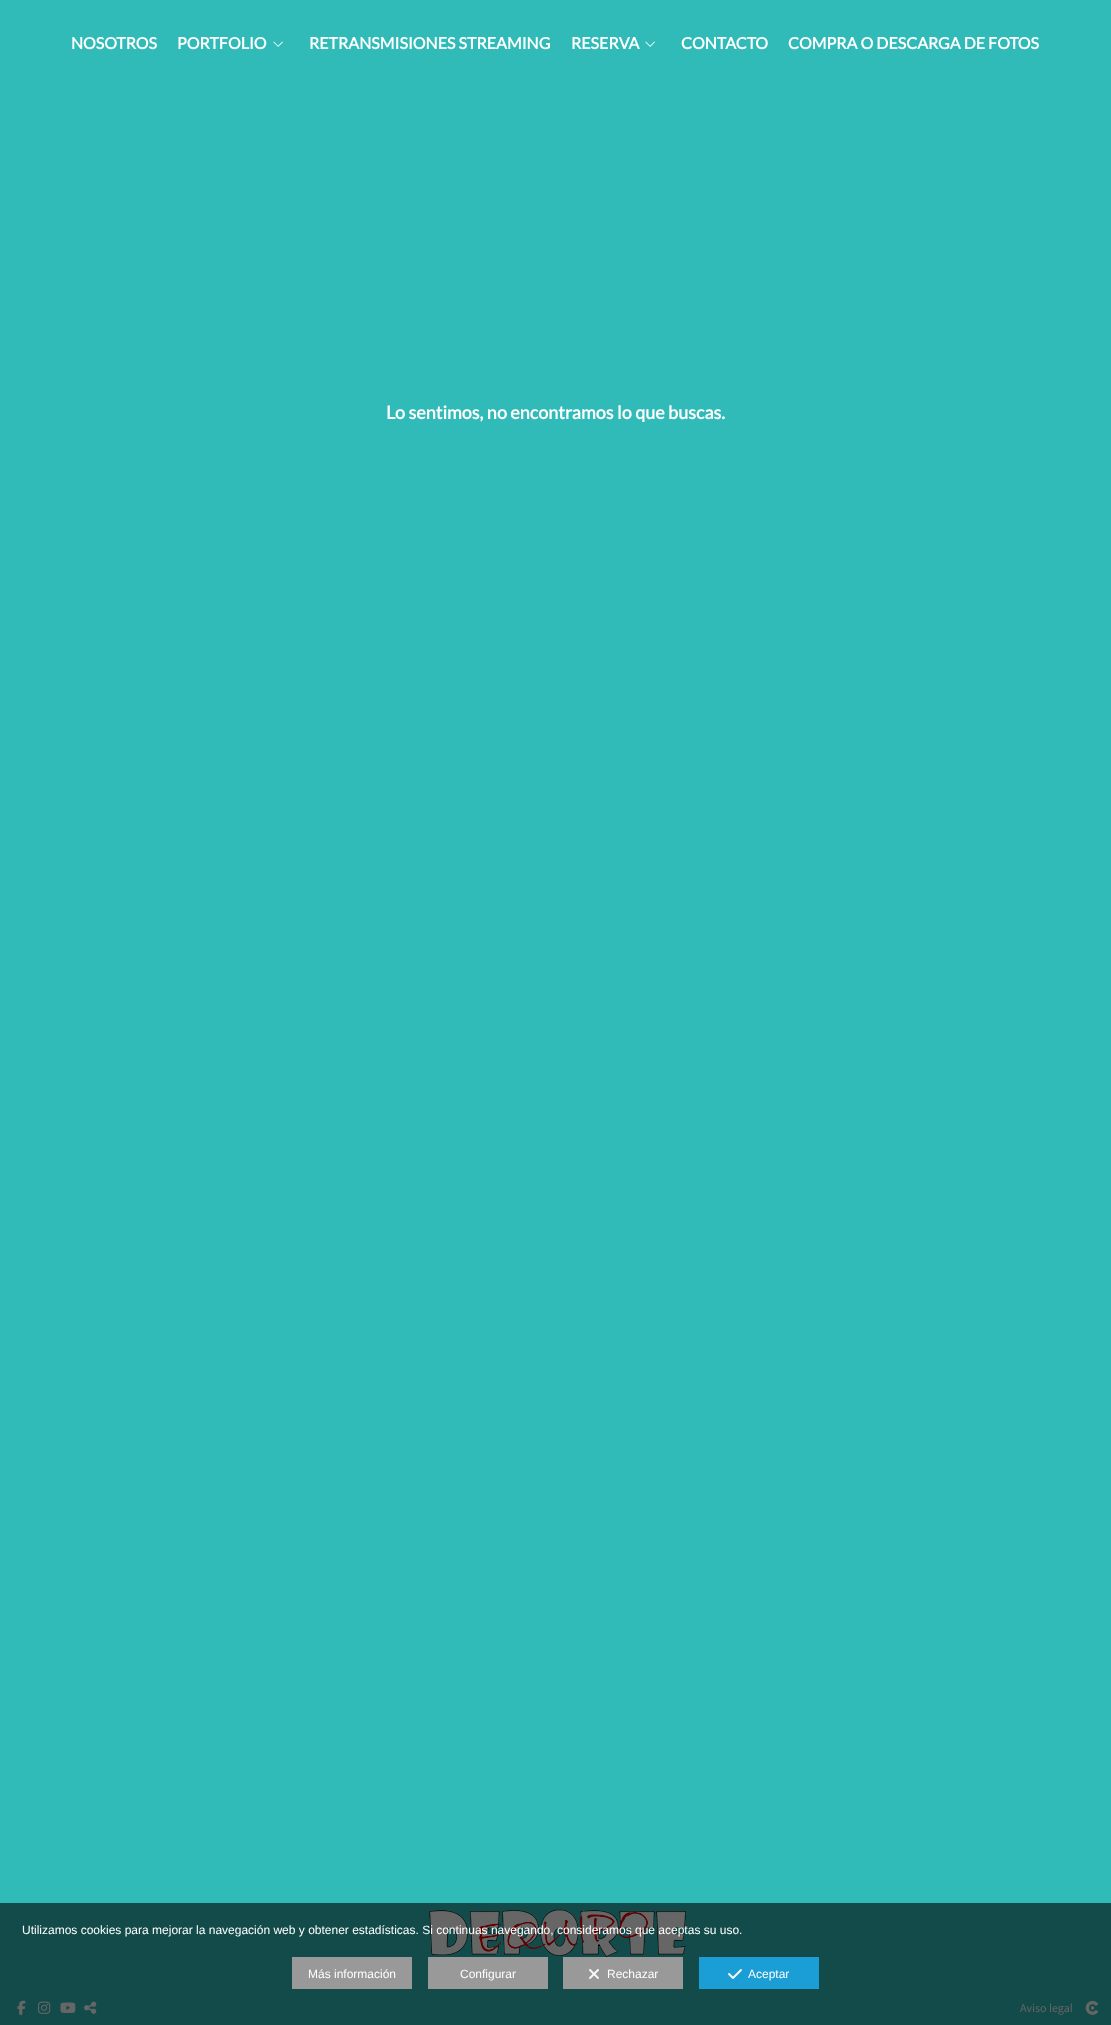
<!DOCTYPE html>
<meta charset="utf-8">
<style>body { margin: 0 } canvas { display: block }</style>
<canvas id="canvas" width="1111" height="2025"></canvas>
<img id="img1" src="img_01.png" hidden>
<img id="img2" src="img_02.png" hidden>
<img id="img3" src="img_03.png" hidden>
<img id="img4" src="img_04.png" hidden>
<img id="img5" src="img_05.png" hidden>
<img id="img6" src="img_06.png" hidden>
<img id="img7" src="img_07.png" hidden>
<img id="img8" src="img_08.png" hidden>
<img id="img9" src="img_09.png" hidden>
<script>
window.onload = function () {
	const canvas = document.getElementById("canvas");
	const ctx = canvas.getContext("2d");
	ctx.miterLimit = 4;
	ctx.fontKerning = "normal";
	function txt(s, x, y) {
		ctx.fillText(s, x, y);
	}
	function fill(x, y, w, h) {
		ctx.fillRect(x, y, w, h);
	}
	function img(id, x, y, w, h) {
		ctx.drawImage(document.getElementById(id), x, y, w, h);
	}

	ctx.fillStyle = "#30BBB8";
	fill(0, 0, 1111, 2025);
	ctx.fillStyle = "#134B4A";
	fill(0, 1903, 1111, 122);
	img("img1", 273, 41, 10, 6);
	img("img1", 645, 41, 10, 6);
	img("img2", 429, 1909, 257, 48);
	img("img3", 17, 2000, 9, 15);
	img("img4", 38, 2001, 13, 13);
	img("img5", 60, 2002, 16, 11);
	img("img6", 84, 2001, 13, 13);
	img("img7", 1085, 2000, 14, 15);
	ctx.fillStyle = "#999999";
	fill(292, 1957, 120, 32);
	fill(428, 1957, 120, 32);
	fill(563, 1957, 120, 32);
	img("img8", 589, 1969, 10, 10);
	ctx.fillStyle = "#1A9ED5";
	fill(699, 1957, 120, 32);
	img("img9", 728, 1969, 14, 10);
	ctx.font = "bold 16px Lato";
	ctx.fillStyle = "#FEFEFE";
	txt("NOSOTROS", 71, 49);
	txt("PORTFOLIO", 177, 49);
	txt("RETRANSMISIONES STREAMING", 309, 49);
	txt("RESERVA", 571, 49);
	txt("CONTACTO", 681, 49);
	txt("COMPRA O DESCARGA DE FOTOS", 788, 49);
	ctx.font = "bold 18px Lato";
	txt("Lo sentimos, no encontramos lo que buscas.", 386, 419);
	ctx.font = "12px Source Sans Pro";
	ctx.fillStyle = "#666666";
	txt("Aviso legal", 1020, 2012);
	ctx.font = "12px Liberation Sans";
	ctx.fillStyle = "#FEFEFE";
	txt("Utilizamos cookies para mejorar la navegación web y obtener estadísticas. Si continuas navegando, consideramos que aceptas su uso.", 22, 1934);
	txt("Más información", 308, 1978);
	txt("Configurar", 460, 1978);
	txt("Rechazar", 607, 1978);
	txt("Aceptar", 748, 1978);
};
</script>
